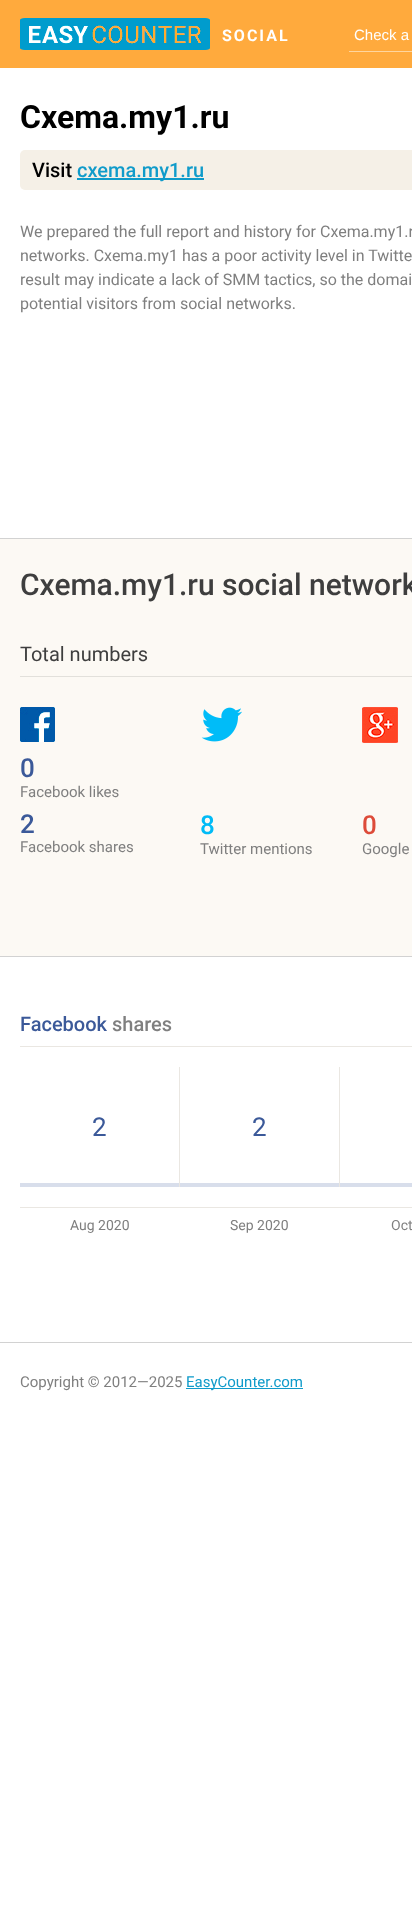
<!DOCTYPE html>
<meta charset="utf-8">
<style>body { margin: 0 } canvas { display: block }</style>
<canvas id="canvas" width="412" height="1919"></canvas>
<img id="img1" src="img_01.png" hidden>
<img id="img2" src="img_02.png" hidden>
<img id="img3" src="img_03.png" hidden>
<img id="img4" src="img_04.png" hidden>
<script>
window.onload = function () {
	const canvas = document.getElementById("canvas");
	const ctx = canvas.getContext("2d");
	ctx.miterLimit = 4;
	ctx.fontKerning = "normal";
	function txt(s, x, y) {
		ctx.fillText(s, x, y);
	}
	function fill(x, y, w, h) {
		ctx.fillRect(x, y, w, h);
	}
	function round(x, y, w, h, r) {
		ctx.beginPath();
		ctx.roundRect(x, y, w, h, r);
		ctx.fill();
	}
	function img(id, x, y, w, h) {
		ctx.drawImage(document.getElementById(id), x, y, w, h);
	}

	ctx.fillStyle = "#FFFFFF";
	fill(0, 0, 412, 1919);
	ctx.fillStyle = "#FFAA3D";
	fill(0, 0, 412, 68);
	img("img1", 20, 18, 190, 32);
	ctx.fillStyle = "#FFD59E";
	fill(349, 51, 63, 1);
	ctx.fillStyle = "#D2D2D2";
	fill(0, 538, 412, 1);
	ctx.fillStyle = "#F5F0E7";
	round(20, 150, 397, 40, 5);
	ctx.fillStyle = "#109BCA";
	fill(77, 178, 127, 2);
	ctx.fillStyle = "#FCF9F4";
	fill(0, 539, 412, 417);
	ctx.fillStyle = "#D2D2D2";
	fill(0, 956, 412, 1);
	ctx.fillStyle = "#E2E0DB";
	fill(20, 676, 392, 1);
	img("img2", 20, 707, 35, 35);
	img("img3", 201, 707, 41, 35);
	img("img4", 362, 707, 36, 36);
	ctx.fillStyle = "#D2D2D2";
	fill(0, 1342, 412, 1);
	ctx.fillStyle = "#EAE7E2";
	fill(20, 1046, 392, 1);
	fill(20, 1207, 392, 1);
	ctx.fillStyle = "#D8DEEB";
	fill(20, 1183, 159, 4);
	ctx.fillStyle = "#EAE7E2";
	fill(179, 1067, 1, 120);
	ctx.fillStyle = "#D8DEEB";
	fill(179, 1183, 160, 4);
	ctx.fillStyle = "#EAE7E2";
	fill(179, 1183, 1, 4);
	fill(339, 1067, 1, 120);
	ctx.fillStyle = "#D8DEEB";
	fill(339, 1183, 73, 4);
	ctx.fillStyle = "#EAE7E2";
	fill(339, 1183, 1, 4);
	ctx.fillStyle = "#109BCA";
	fill(186, 1388, 117, 1);
	ctx.letterSpacing = "2px";
	ctx.font = "bold 16px Roboto";
	ctx.fillStyle = "#FFFFFF";
	txt("SOCIAL", 222, 41);
	ctx.letterSpacing = "0px";
	ctx.font = "15px Liberation Sans";
	txt("Check a", 354, 40);
	ctx.font = "bold 32px Roboto";
	ctx.fillStyle = "#000000";
	txt("Cxema.my1.ru", 20, 128);
	ctx.font = "500 20px Roboto";
	txt("Visit", 32, 177);
	ctx.fillStyle = "#109BCA";
	txt("cxema.my1.ru", 77, 177);
	ctx.font = "16px Roboto";
	ctx.fillStyle = "#7F7F7F";
	txt("We prepared the full report and history for Cxema.my1.r", 20, 237);
	txt("networks. Cxema.my1 has a poor activity level in Twitte", 20, 261);
	txt("result may indicate a lack of SMM tactics, so the domai", 20, 285);
	txt("potential visitors from social networks.", 20, 309);
	ctx.font = "500 30px Roboto";
	ctx.fillStyle = "#3E3E3E";
	txt("Cxema.my1.ru social network", 20, 595);
	ctx.font = "20px Roboto";
	txt("Total numbers", 20, 661);
	ctx.font = "500 26px Roboto";
	ctx.fillStyle = "#3B5999";
	txt("0", 20, 777);
	ctx.font = "15px Roboto";
	ctx.fillStyle = "#7F7F7F";
	txt("Facebook likes", 20, 797);
	ctx.font = "500 26px Roboto";
	ctx.fillStyle = "#3B5999";
	txt("2", 20, 833);
	ctx.font = "15px Roboto";
	ctx.fillStyle = "#7F7F7F";
	txt("Facebook shares", 20, 852);
	ctx.font = "500 26px Roboto";
	ctx.fillStyle = "#01BBF6";
	txt("8", 200, 834);
	ctx.font = "15px Roboto";
	ctx.fillStyle = "#7F7F7F";
	txt("Twitter mentions", 200, 854);
	ctx.font = "500 26px Roboto";
	ctx.fillStyle = "#DD4B39";
	txt("0", 362, 834);
	ctx.font = "15px Roboto";
	ctx.fillStyle = "#7F7F7F";
	txt("Google", 362, 854);
	ctx.font = "500 20px Roboto";
	ctx.fillStyle = "#3B5999";
	txt("Facebook", 20, 1031);
	ctx.fillStyle = "#7F7F7F";
	txt("shares", 112, 1031);
	ctx.font = "26px Roboto";
	ctx.fillStyle = "#3B5999";
	txt("2", 92, 1136);
	ctx.font = "14px Roboto";
	ctx.fillStyle = "#7F7F7F";
	txt("Aug 2020", 70, 1230);
	ctx.font = "26px Roboto";
	ctx.fillStyle = "#3B5999";
	txt("2", 252, 1136);
	ctx.font = "14px Roboto";
	ctx.fillStyle = "#7F7F7F";
	txt("Sep 2020", 230, 1230);
	txt("Oct", 391, 1230);
	ctx.font = "15px Roboto";
	txt("Copyright © 2012—2025", 20, 1387);
	ctx.fillStyle = "#109BCA";
	txt("EasyCounter.com", 186, 1387);
};
</script>
